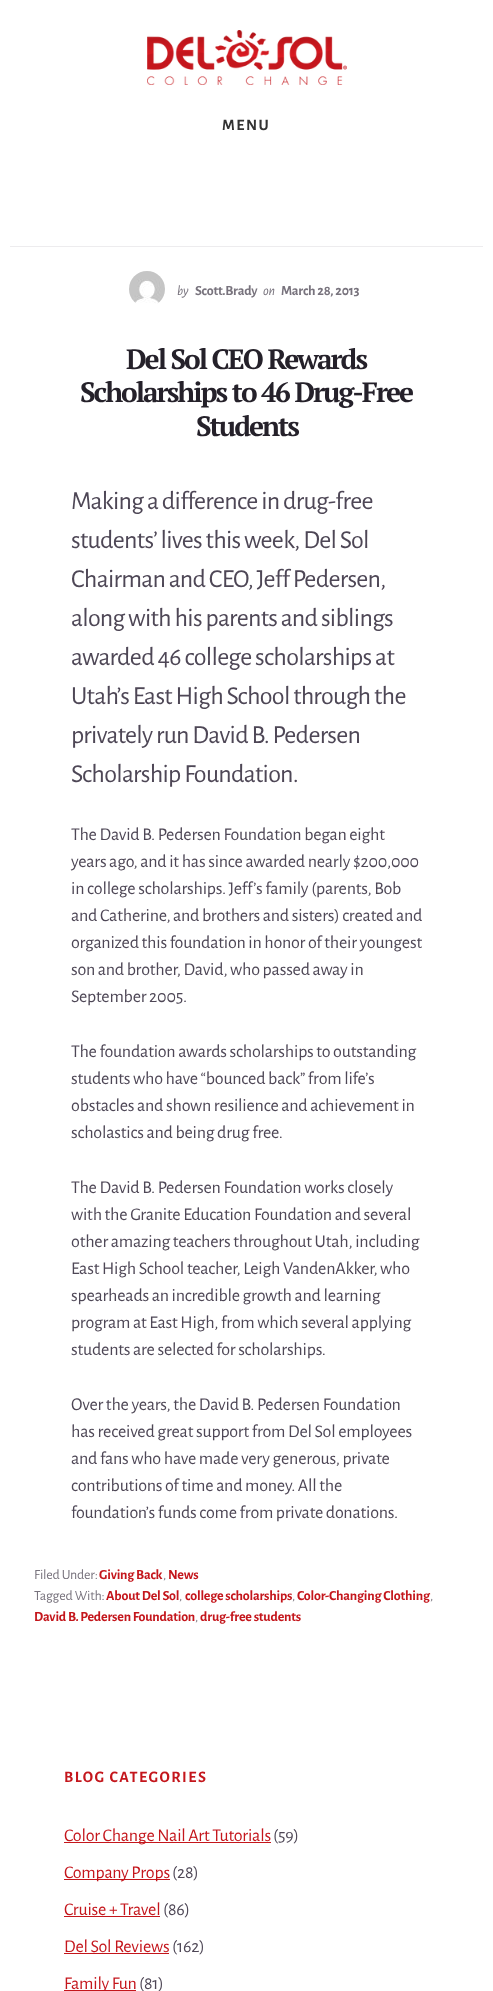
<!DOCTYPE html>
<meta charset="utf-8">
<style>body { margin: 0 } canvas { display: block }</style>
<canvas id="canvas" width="493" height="1991"></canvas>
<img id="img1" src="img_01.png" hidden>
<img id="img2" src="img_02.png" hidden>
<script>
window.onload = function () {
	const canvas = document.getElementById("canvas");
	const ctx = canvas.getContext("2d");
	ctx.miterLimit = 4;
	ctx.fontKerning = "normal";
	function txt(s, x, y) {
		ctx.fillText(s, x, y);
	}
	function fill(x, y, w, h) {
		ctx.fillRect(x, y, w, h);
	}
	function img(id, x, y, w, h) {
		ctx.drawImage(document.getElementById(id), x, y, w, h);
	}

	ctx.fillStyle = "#FFFFFF";
	fill(0, 0, 493, 1991);
	ctx.fillStyle = "#EDECEE";
	fill(10, 246, 473, 1);
	img("img1", 147, 30, 200, 55);
	img("img2", 129, 271, 36, 33);
	ctx.fillStyle = "#C4161C";
	fill(64, 1842, 207, 1);
	fill(64, 1879, 106, 1);
	fill(64, 1916, 96, 1);
	fill(64, 1953, 105, 1);
	fill(64, 1990, 72, 1);
	ctx.letterSpacing = "1.5px";
	ctx.font = "bold 16px Alegreya Sans";
	ctx.fillStyle = "#333333";
	txt("MENU", 222, 130);
	ctx.letterSpacing = "-0.2px";
	ctx.font = "italic 14px Alegreya Sans";
	ctx.fillStyle = "#78737D";
	txt("by", 177, 295);
	ctx.font = "bold 14px Alegreya Sans";
	txt("Scott.Brady", 195, 295);
	ctx.font = "italic 14px Alegreya Sans";
	txt("on", 263, 295);
	ctx.font = "bold 14px Alegreya Sans";
	txt("March 28, 2013", 281, 295);
	ctx.letterSpacing = "-2px";
	ctx.font = "bold 28px PT Serif";
	ctx.fillStyle = "#25212A";
	txt("Del Sol CEO Rewards", 126, 369);
	txt("Scholarships to 46 Drug-Free", 80, 402);
	txt("Students", 196, 436);
	ctx.letterSpacing = "-0.7px";
	ctx.font = "26px Alegreya Sans";
	ctx.fillStyle = "#4E4756";
	txt("Making a difference in drug-free", 71, 509);
	txt("students’ lives this week, Del Sol", 71, 548);
	txt("Chairman and CEO, Jeff Pedersen,", 71, 587);
	txt("along with his parents and siblings", 71, 626);
	txt("awarded 46 college scholarships at", 71, 665);
	txt("Utah’s East High School through the", 71, 704);
	txt("privately run David B. Pedersen", 71, 743);
	txt("Scholarship Foundation.", 71, 782);
	ctx.letterSpacing = "-0.2px";
	ctx.font = "18px Alegreya Sans";
	txt("The David B. Pedersen Foundation began eight", 71, 840);
	txt("years ago, and it has since awarded nearly $200,000", 71, 867);
	txt("in college scholarships. Jeff’s family (parents, Bob", 71, 894);
	txt("and Catherine, and brothers and sisters) created and", 71, 921);
	txt("organized this foundation in honor of their youngest", 71, 948);
	txt("son and brother, David, who passed away in", 71, 975);
	txt("September 2005.", 71, 1002);
	txt("The foundation awards scholarships to outstanding", 71, 1057);
	txt("students who have “bounced back” from life’s", 71, 1084);
	txt("obstacles and shown resilience and achievement in", 71, 1111);
	txt("scholastics and being drug free.", 71, 1138);
	txt("The David B. Pedersen Foundation works closely", 71, 1193);
	txt("with the Granite Education Foundation and several", 71, 1220);
	txt("other amazing teachers throughout Utah, including", 71, 1247);
	txt("East High School teacher, Leigh VandenAkker, who", 71, 1274);
	txt("spearheads an incredible growth and learning", 71, 1301);
	txt("program at East High, from which several applying", 71, 1328);
	txt("students are selected for scholarships.", 71, 1355);
	txt("Over the years, the David B. Pedersen Foundation", 71, 1410);
	txt("has received great support from Del Sol employees", 71, 1437);
	txt("and fans who have made very generous, private", 71, 1464);
	txt("contributions of time and money. All the", 71, 1491);
	txt("foundation’s funds come from private donations.", 71, 1518);
	ctx.font = "14px Alegreya Sans";
	ctx.fillStyle = "#78737D";
	txt("Filed Under:", 34, 1579);
	ctx.font = "bold 14px Alegreya Sans";
	ctx.fillStyle = "#C4161C";
	txt("Giving Back", 99, 1579);
	ctx.font = "14px Alegreya Sans";
	ctx.fillStyle = "#78737D";
	txt(",", 163, 1579);
	ctx.font = "bold 14px Alegreya Sans";
	ctx.fillStyle = "#C4161C";
	txt("News", 168, 1579);
	ctx.font = "14px Alegreya Sans";
	ctx.fillStyle = "#78737D";
	txt("Tagged With:", 34, 1600);
	ctx.font = "bold 14px Alegreya Sans";
	ctx.fillStyle = "#C4161C";
	txt("About Del Sol", 106, 1600);
	ctx.font = "14px Alegreya Sans";
	ctx.fillStyle = "#78737D";
	txt(",", 179, 1600);
	ctx.font = "bold 14px Alegreya Sans";
	ctx.fillStyle = "#C4161C";
	txt("college scholarships", 185, 1600);
	ctx.font = "14px Alegreya Sans";
	ctx.fillStyle = "#78737D";
	txt(",", 292, 1600);
	ctx.font = "bold 14px Alegreya Sans";
	ctx.fillStyle = "#C4161C";
	txt("Color-Changing Clothing", 297, 1600);
	ctx.font = "14px Alegreya Sans";
	ctx.fillStyle = "#78737D";
	txt(",", 430, 1600);
	ctx.font = "bold 14px Alegreya Sans";
	ctx.fillStyle = "#C4161C";
	txt("David B. Pedersen Foundation", 34, 1621);
	ctx.font = "14px Alegreya Sans";
	ctx.fillStyle = "#78737D";
	txt(",", 195, 1621);
	ctx.font = "bold 14px Alegreya Sans";
	ctx.fillStyle = "#C4161C";
	txt("drug-free students", 200, 1621);
	ctx.letterSpacing = "1.5px";
	ctx.font = "bold 16px Alegreya Sans";
	txt("BLOG CATEGORIES", 64, 1782);
	ctx.letterSpacing = "-0.2px";
	ctx.font = "18px Alegreya Sans";
	txt("Color Change Nail Art Tutorials", 64, 1841);
	ctx.fillStyle = "#4E4756";
	txt("(59)", 273, 1841);
	ctx.fillStyle = "#C4161C";
	txt("Company Props", 64, 1878);
	ctx.fillStyle = "#4E4756";
	txt("(28)", 172, 1878);
	ctx.fillStyle = "#C4161C";
	txt("Cruise + Travel", 64, 1915);
	ctx.fillStyle = "#4E4756";
	txt("(86)", 163, 1915);
	ctx.fillStyle = "#C4161C";
	txt("Del Sol Reviews", 64, 1952);
	ctx.fillStyle = "#4E4756";
	txt("(162)", 172, 1952);
	ctx.fillStyle = "#C4161C";
	txt("Family Fun", 64, 1989);
	ctx.fillStyle = "#4E4756";
	txt("(81)", 139, 1989);
};
</script>
